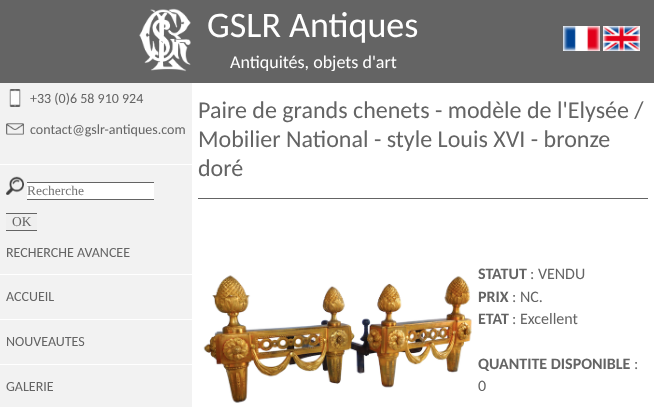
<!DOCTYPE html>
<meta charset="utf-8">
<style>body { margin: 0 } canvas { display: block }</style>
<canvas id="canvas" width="654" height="407"></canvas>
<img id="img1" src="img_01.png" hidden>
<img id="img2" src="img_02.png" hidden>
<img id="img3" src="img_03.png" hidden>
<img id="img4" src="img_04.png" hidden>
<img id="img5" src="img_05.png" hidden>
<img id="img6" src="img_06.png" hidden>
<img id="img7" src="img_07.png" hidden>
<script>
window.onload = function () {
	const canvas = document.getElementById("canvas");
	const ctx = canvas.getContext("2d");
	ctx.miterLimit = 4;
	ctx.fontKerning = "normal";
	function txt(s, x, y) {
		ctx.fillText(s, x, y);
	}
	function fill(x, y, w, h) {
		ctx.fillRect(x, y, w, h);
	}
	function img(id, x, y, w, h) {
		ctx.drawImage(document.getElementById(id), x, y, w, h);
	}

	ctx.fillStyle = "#FFFFFF";
	fill(0, 0, 654, 407);
	ctx.fillStyle = "#646464";
	fill(0, 0, 654, 83);
	img("img1", 139, 8, 52, 64);
	img("img2", 563, 26, 37, 25);
	img("img3", 603, 26, 37, 25);
	ctx.fillStyle = "#F2F2F2";
	fill(0, 83, 192, 324);
	ctx.fillStyle = "#FFFFFF";
	fill(0, 164, 192, 1);
	img("img4", 9, 89, 12, 18);
	img("img5", 6, 123, 18, 12);
	fill(0, 274, 192, 1);
	img("img6", 6, 176, 18, 19);
	fill(27, 183, 127, 16);
	ctx.fillStyle = "#646464";
	fill(27, 182, 127, 1);
	fill(27, 199, 127, 1);
	ctx.fillStyle = "#EFEFEF";
	fill(6, 214, 31, 16);
	ctx.fillStyle = "#646464";
	fill(6, 213, 31, 1);
	fill(6, 230, 31, 1);
	ctx.fillStyle = "#FFFFFF";
	fill(0, 319, 192, 1);
	fill(0, 364, 192, 1);
	ctx.fillStyle = "#646464";
	fill(198, 198, 450, 1);
	img("img7", 203, 275, 269, 128);
	ctx.font = "36px Carlito";
	ctx.fillStyle = "#FFFFFF";
	txt("GSLR Antiques", 207, 37);
	ctx.font = "18px Carlito";
	txt("Antiquités, objets d'art", 230, 68);
	ctx.font = "14px Carlito";
	ctx.fillStyle = "#646464";
	txt("+33 (0)6 58 910 924", 30, 103);
	txt("contact@gslr-antiques.com", 30, 134);
	ctx.font = "13.5px Liberation Serif";
	ctx.fillStyle = "#757575";
	txt("Recherche", 27, 195);
	ctx.fillStyle = "#646464";
	txt("OK", 12, 226);
	ctx.font = "14px Carlito";
	txt("RECHERCHE AVANCEE", 6, 257);
	txt("ACCUEIL", 6, 301);
	txt("NOUVEAUTES", 6, 346);
	txt("GALERIE", 6, 391);
	ctx.font = "24px Carlito";
	txt("Paire de grands chenets - modèle de l'Elysée /", 198, 118);
	txt("Mobilier National - style Louis XVI - bronze", 198, 147);
	txt("doré", 198, 176);
	ctx.font = "bold 16px Carlito";
	txt("STATUT", 478, 279);
	ctx.font = "16px Carlito";
	txt(": VENDU", 530, 279);
	ctx.font = "bold 16px Carlito";
	txt("PRIX", 478, 302);
	ctx.font = "16px Carlito";
	txt(": NC.", 512, 302);
	ctx.font = "bold 16px Carlito";
	txt("ETAT", 478, 324);
	ctx.font = "16px Carlito";
	txt(": Excellent", 512, 324);
	ctx.font = "bold 16px Carlito";
	txt("QUANTITE DISPONIBLE", 478, 369);
	ctx.font = "16px Carlito";
	txt(":", 634, 369);
	txt("0", 478, 391);
};
</script>
